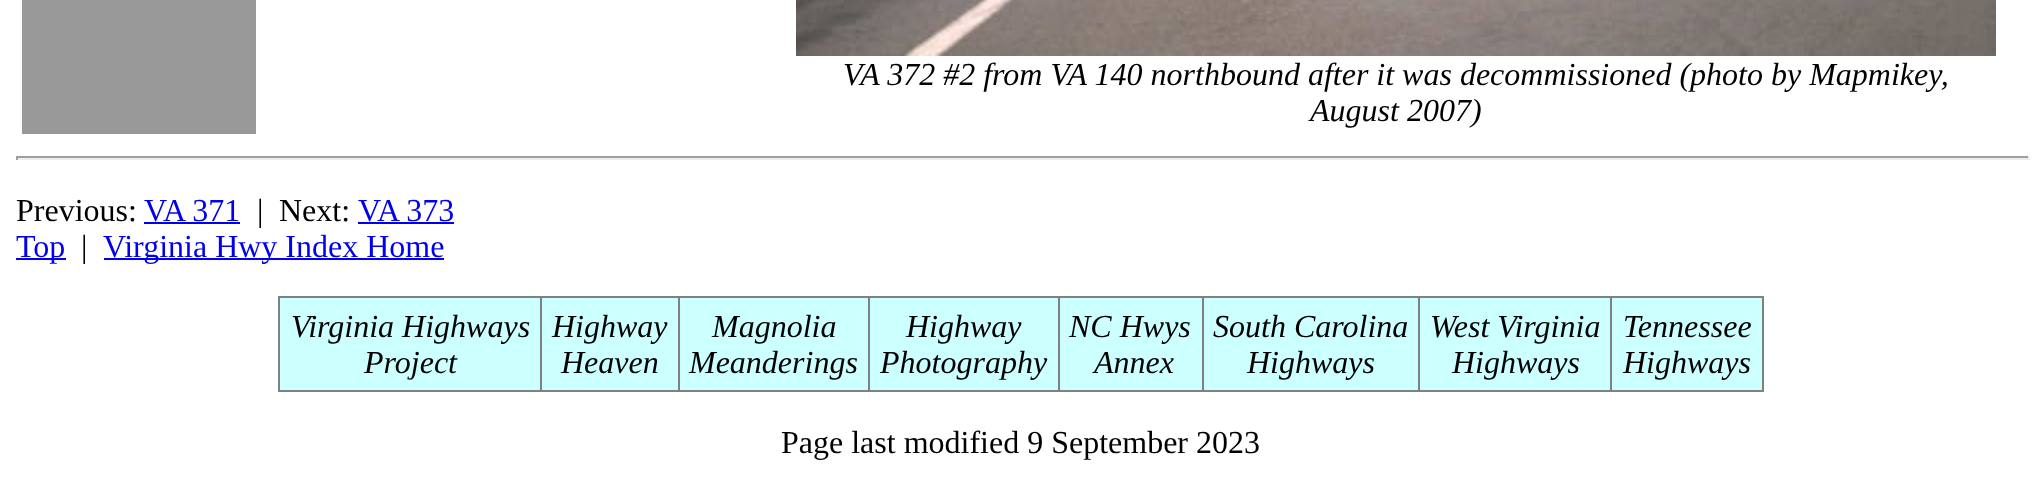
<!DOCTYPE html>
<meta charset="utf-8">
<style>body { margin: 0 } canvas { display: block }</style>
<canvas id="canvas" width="2042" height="492"></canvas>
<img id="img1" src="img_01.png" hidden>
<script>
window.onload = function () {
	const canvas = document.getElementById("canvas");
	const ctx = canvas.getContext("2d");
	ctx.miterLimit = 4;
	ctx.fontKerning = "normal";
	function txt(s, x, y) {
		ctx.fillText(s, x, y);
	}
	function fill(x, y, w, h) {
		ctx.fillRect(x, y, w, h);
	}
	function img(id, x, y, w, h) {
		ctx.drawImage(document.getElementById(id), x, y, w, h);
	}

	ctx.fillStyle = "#FFFFFF";
	fill(0, 0, 2042, 492);
	ctx.fillStyle = "#999999";
	fill(22, 0, 234, 134);
	img("img1", 796, 0, 1200, 56);
	ctx.fillStyle = "#9F9F9F";
	fill(16, 156, 2014, 2);
	ctx.fillStyle = "#EEEEEE";
	fill(2028, 156, 2, 4);
	fill(16, 158, 2014, 2);
	ctx.fillStyle = "#9F9F9F";
	fill(16, 156, 2, 4);
	ctx.fillStyle = "#0000EE";
	fill(144, 222, 96, 2);
	fill(358, 222, 96, 2);
	fill(16, 258, 50, 2);
	fill(104, 258, 340, 2);
	ctx.fillStyle = "#808080";
	fill(278, 296, 1486, 2);
	fill(1762, 296, 2, 96);
	fill(278, 390, 1486, 2);
	fill(278, 296, 2, 96);
	ctx.fillStyle = "#CCFFFF";
	fill(280, 298, 260, 92);
	fill(542, 298, 136, 92);
	ctx.fillStyle = "#808080";
	fill(540, 296, 2, 96);
	ctx.fillStyle = "#CCFFFF";
	fill(680, 298, 188, 92);
	ctx.fillStyle = "#808080";
	fill(678, 296, 2, 96);
	ctx.fillStyle = "#CCFFFF";
	fill(870, 298, 188, 92);
	ctx.fillStyle = "#808080";
	fill(868, 296, 2, 96);
	ctx.fillStyle = "#CCFFFF";
	fill(1060, 298, 142, 92);
	ctx.fillStyle = "#808080";
	fill(1058, 296, 2, 96);
	ctx.fillStyle = "#CCFFFF";
	fill(1204, 298, 214, 92);
	ctx.fillStyle = "#808080";
	fill(1202, 296, 2, 96);
	ctx.fillStyle = "#CCFFFF";
	fill(1420, 298, 190, 92);
	ctx.fillStyle = "#808080";
	fill(1418, 296, 2, 96);
	ctx.fillStyle = "#CCFFFF";
	fill(1612, 298, 150, 92);
	ctx.fillStyle = "#808080";
	fill(1610, 296, 2, 96);
	ctx.font = "italic 32px Liberation Serif";
	ctx.fillStyle = "#000000";
	txt("VA 372 #2 from VA 140 northbound after it was decommissioned (photo by Mapmikey,", 843, 85);
	txt("August 2007)", 1310, 121);
	ctx.font = "32px Liberation Serif";
	txt("Previous:", 16, 221);
	ctx.fillStyle = "#0000EE";
	txt("VA 371", 144, 221);
	ctx.fillStyle = "#000000";
	txt("|", 257, 221);
	txt("Next:", 279, 221);
	ctx.fillStyle = "#0000EE";
	txt("VA 373", 358, 221);
	txt("Top", 16, 257);
	ctx.fillStyle = "#000000";
	txt("|", 81, 257);
	ctx.fillStyle = "#0000EE";
	txt("Virginia Hwy Index Home", 103, 257);
	ctx.font = "italic 32px Liberation Serif";
	ctx.fillStyle = "#000000";
	txt("Virginia Highways", 291, 337);
	txt("Project", 364, 373);
	txt("Highway", 552, 337);
	txt("Heaven", 561, 373);
	txt("Magnolia", 712, 337);
	txt("Meanderings", 689, 373);
	txt("Highway", 906, 337);
	txt("Photography", 880, 373);
	txt("NC Hwys", 1069, 337);
	txt("Annex", 1094, 373);
	txt("South Carolina", 1213, 337);
	txt("Highways", 1247, 373);
	txt("West Virginia", 1430, 337);
	txt("Highways", 1452, 373);
	txt("Tennessee", 1623, 337);
	txt("Highways", 1623, 373);
	ctx.font = "32px Liberation Serif";
	txt("Page last modified 9 September 2023", 781, 453);
};
</script>
